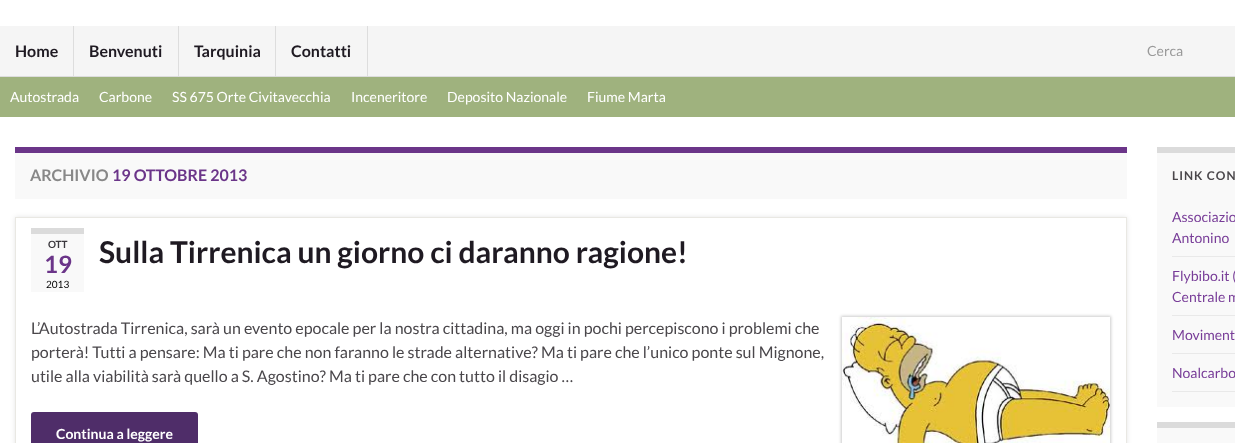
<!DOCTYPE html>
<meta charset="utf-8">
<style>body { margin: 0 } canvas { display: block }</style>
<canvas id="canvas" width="1235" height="443"></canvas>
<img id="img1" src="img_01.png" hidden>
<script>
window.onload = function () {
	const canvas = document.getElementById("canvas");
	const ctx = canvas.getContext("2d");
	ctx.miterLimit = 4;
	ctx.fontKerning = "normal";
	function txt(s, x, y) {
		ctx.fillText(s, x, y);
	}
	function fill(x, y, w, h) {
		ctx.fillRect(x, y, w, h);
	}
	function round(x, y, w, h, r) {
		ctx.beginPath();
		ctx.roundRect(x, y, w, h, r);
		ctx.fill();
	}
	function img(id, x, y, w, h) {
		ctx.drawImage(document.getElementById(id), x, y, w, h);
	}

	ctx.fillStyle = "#FFFFFF";
	fill(0, 0, 1235, 443);
	ctx.fillStyle = "#F5F5F5";
	fill(0, 26, 1235, 50);
	ctx.fillStyle = "#DDDDDD";
	fill(73, 26, 1, 50);
	fill(178, 26, 1, 50);
	fill(275, 26, 1, 50);
	fill(367, 26, 1, 50);
	ctx.fillStyle = "#9FB27E";
	fill(0, 77, 1235, 40);
	ctx.fillStyle = "#DDDDDD";
	fill(0, 76, 1235, 1);
	ctx.fillStyle = "#F9F9F9";
	fill(15, 153, 1112, 46);
	ctx.fillStyle = "#6B3589";
	fill(15, 147, 1112, 6);
	ctx.save();
	ctx.beginPath();
	ctx.moveTo(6, 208);
	ctx.lineTo(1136, 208);
	ctx.lineTo(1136, 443);
	ctx.lineTo(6, 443);
	ctx.closePath();
	ctx.moveTo(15, 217);
	ctx.lineTo(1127, 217);
	ctx.lineTo(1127, 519);
	ctx.lineTo(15, 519);
	ctx.closePath();
	ctx.clip("evenodd");
	ctx.fillStyle = "rgba(0, 0, 0, 0.1)";
	ctx.filter = "blur(2.5px)";
	ctx.beginPath();
	ctx.rect(15, 217, 1112, 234);
	ctx.fill();
	ctx.filter = "none";
	ctx.restore();
	ctx.strokeStyle = "#E9E8E3";
	ctx.strokeRect(15.5, 217.5, 1111, 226);
	ctx.fillStyle = "#F9F9F9";
	fill(31, 234, 53, 58);
	ctx.fillStyle = "#DBDBDB";
	fill(31, 228, 53, 6);
	ctx.fillStyle = "rgba(0, 0, 0, 0.2)";
	ctx.filter = "blur(1.5px)";
	ctx.beginPath();
	ctx.rect(841, 316, 270, 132);
	ctx.fill();
	ctx.filter = "none";
	img("img1", 842, 317, 268, 126);
	ctx.fillStyle = "#4F2D69";
	round(31, 412, 167, 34, 3);
	ctx.fillStyle = "#F9F9F9";
	fill(1157, 153, 78, 254);
	ctx.fillStyle = "#DBDBDB";
	fill(1157, 147, 78, 6);
	ctx.fillStyle = "#E9E9E9";
	fill(1172, 256, 63, 1);
	fill(1172, 315, 63, 1);
	fill(1172, 353, 63, 1);
	fill(1172, 391, 63, 1);
	ctx.fillStyle = "#F9F9F9";
	fill(1157, 428, 78, 15);
	ctx.fillStyle = "#DBDBDB";
	fill(1157, 422, 78, 6);
	ctx.font = "bold 16px Lato";
	ctx.fillStyle = "#1F1A22";
	txt("Home", 15, 57);
	txt("Benvenuti", 89, 57);
	txt("Tarquinia", 194, 57);
	txt("Contatti", 291, 57);
	ctx.font = "14px Lato";
	ctx.fillStyle = "#999999";
	txt("Cerca", 1147, 56);
	ctx.fillStyle = "#FFFFFF";
	txt("Autostrada", 10, 102);
	txt("Carbone", 99, 102);
	txt("SS 675 Orte Civitavecchia", 172, 102);
	txt("Inceneritore", 351, 102);
	txt("Deposito Nazionale", 447, 102);
	txt("Fiume Marta", 587, 102);
	ctx.font = "bold 16px Lato";
	ctx.fillStyle = "#888888";
	txt("ARCHIVIO", 30, 181);
	ctx.fillStyle = "#6B3589";
	txt("19 OTTOBRE 2013", 112, 181);
	ctx.font = "bold 10px Lato";
	ctx.fillStyle = "#3B383D";
	txt("OTT", 48, 248);
	ctx.font = "bold 24px Lato";
	ctx.fillStyle = "#6B3589";
	txt("19", 44, 273);
	ctx.font = "10px Lato";
	ctx.fillStyle = "#000000";
	txt("2013", 46, 288);
	ctx.font = "bold 30px Lato";
	ctx.fillStyle = "#1F1A22";
	txt("Sulla Tirrenica un giorno ci daranno ragione!", 99, 263);
	ctx.font = "16px Lato";
	ctx.fillStyle = "#4A474B";
	txt("L’Autostrada Tirrenica, sarà un evento epocale per la nostra cittadina, ma oggi in pochi percepiscono i problemi che", 31, 334);
	txt("porterà! Tutti a pensare: Ma ti pare che non faranno le strade alternative? Ma ti pare che l’unico ponte sul Mignone,", 31, 358);
	txt("utile alla viabilità sarà quello a S. Agostino? Ma ti pare che con tutto il disagio …", 31, 382);
	ctx.font = "bold 14px Lato";
	ctx.fillStyle = "#FFFFFF";
	txt("Continua a leggere", 56, 439);
	ctx.letterSpacing = "1px";
	ctx.font = "bold 12px Lato";
	ctx.fillStyle = "#4A474B";
	txt("LINK CON", 1172, 180);
	ctx.letterSpacing = "0px";
	ctx.font = "14px Lato";
	ctx.fillStyle = "#783D98";
	txt("Associazio", 1172, 222);
	txt("Antonino", 1172, 243);
	txt("Flybibo.it (", 1172, 281);
	txt("Centrale m", 1172, 302);
	txt("Moviment", 1172, 340);
	txt("Noalcarbo", 1172, 378);
};
</script>
